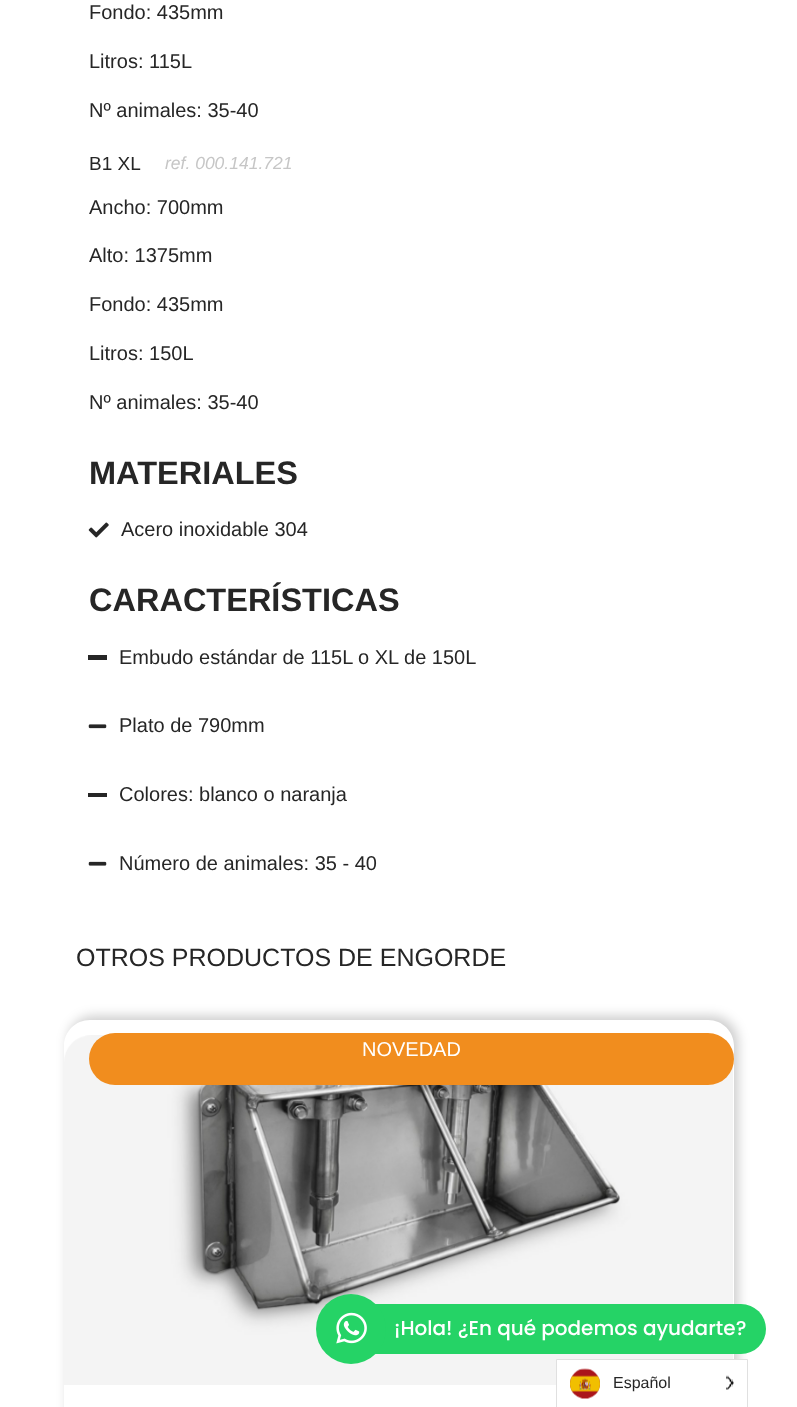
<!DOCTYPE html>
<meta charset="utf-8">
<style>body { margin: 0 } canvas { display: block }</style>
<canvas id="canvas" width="797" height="1407"></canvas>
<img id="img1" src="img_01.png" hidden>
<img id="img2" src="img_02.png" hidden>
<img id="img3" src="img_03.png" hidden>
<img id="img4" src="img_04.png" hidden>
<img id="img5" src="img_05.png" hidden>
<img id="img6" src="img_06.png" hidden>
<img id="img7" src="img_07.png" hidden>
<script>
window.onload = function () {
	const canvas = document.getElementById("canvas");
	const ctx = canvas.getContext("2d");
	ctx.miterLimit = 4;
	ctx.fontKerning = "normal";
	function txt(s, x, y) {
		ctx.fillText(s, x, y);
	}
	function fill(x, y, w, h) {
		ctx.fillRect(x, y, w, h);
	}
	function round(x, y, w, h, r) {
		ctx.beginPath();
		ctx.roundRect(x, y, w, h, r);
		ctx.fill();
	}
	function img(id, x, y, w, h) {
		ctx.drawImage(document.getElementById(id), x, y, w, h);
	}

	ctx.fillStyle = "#FFFFFF";
	fill(0, 0, 797, 1407);
	img("img1", 88, 522, 21, 16);
	ctx.fillStyle = "#262626";
	fill(88, 655, 19, 5);
	img("img2", 88, 724, 19, 5);
	fill(88, 793, 19, 4);
	img("img3", 88, 861, 19, 5);
	ctx.save();
	ctx.beginPath();
	ctx.moveTo(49, 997);
	ctx.lineTo(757, 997);
	ctx.lineTo(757, 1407);
	ctx.lineTo(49, 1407);
	ctx.closePath();
	ctx.moveTo(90, 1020);
	ctx.lineTo(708, 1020);
	ctx.bezierCurveTo(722.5, 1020, 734, 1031.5, 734, 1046);
	ctx.lineTo(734, 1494);
	ctx.bezierCurveTo(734, 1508.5, 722.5, 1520, 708, 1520);
	ctx.lineTo(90, 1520);
	ctx.bezierCurveTo(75.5, 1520, 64, 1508.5, 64, 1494);
	ctx.lineTo(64, 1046);
	ctx.bezierCurveTo(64, 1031.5, 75.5, 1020, 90, 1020);
	ctx.closePath();
	ctx.clip("evenodd");
	ctx.fillStyle = "rgba(0, 0, 0, 0.2)";
	ctx.filter = "blur(6px)";
	ctx.beginPath();
	ctx.roundRect(68, 1016, 670, 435, 26);
	ctx.fill();
	ctx.filter = "none";
	ctx.restore();
	img("img4", 64, 1035, 669, 350);
	ctx.fillStyle = "#F18D1E";
	round(89, 1033, 645, 52, 26);
	ctx.fillStyle = "#25D366";
	ctx.beginPath();
	ctx.roundRect(374, 1304, 392, 50, [0, 25, 25, 0]);
	ctx.fill();
	ctx.beginPath();
	ctx.arc(351, 1329, 35, 0, Math.PI * 2);
	ctx.fill();
	img("img5", 336, 1312, 31, 32);
	ctx.fillStyle = "#FFFFFF";
	ctx.beginPath();
	ctx.rect(556.5, 1359.5, 191, 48);
	ctx.fill();
	ctx.strokeStyle = "#E0E0E0";
	ctx.stroke();
	img("img6", 570, 1368, 30, 31);
	img("img7", 726, 1375, 8, 15);
	ctx.font = "20px Liberation Sans";
	ctx.fillStyle = "#262626";
	txt("Fondo: 435mm", 89, 19);
	txt("Litros: 115L", 89, 68);
	txt("Nº animales: 35-40", 89, 117);
	ctx.font = "19px Liberation Sans";
	txt("B1 XL", 89, 170);
	ctx.font = "italic 17.5px Liberation Sans";
	ctx.fillStyle = "#C6C6C6";
	txt("ref. 000.141.721", 165, 169);
	ctx.font = "20px Liberation Sans";
	ctx.fillStyle = "#262626";
	txt("Ancho: 700mm", 89, 214);
	txt("Alto: 1375mm", 89, 262);
	txt("Fondo: 435mm", 89, 311);
	txt("Litros: 150L", 89, 360);
	txt("Nº animales: 35-40", 89, 409);
	ctx.font = "bold 32.5px Liberation Sans";
	txt("MATERIALES", 89, 484);
	ctx.font = "20px Liberation Sans";
	txt("Acero inoxidable 304", 121, 536);
	ctx.font = "bold 32.5px Liberation Sans";
	txt("CARACTERÍSTICAS", 89, 611);
	ctx.font = "20px Liberation Sans";
	txt("Embudo estándar de 115L o XL de 150L", 119, 664);
	txt("Plato de 790mm", 119, 732);
	txt("Colores: blanco o naranja", 119, 801);
	txt("Número de animales: 35 - 40", 119, 870);
	ctx.font = "25px Liberation Sans";
	txt("OTROS PRODUCTOS DE ENGORDE", 76, 966);
	ctx.font = "20px Liberation Sans";
	ctx.fillStyle = "#FFFFFF";
	txt("NOVEDAD", 362, 1056);
	ctx.font = "500 20px Poppins";
	txt("¡Hola! ¿En qué podemos ayudarte?", 394, 1335);
	ctx.font = "16px Liberation Sans";
	ctx.fillStyle = "#262626";
	txt("Español", 613, 1388);
};
</script>
